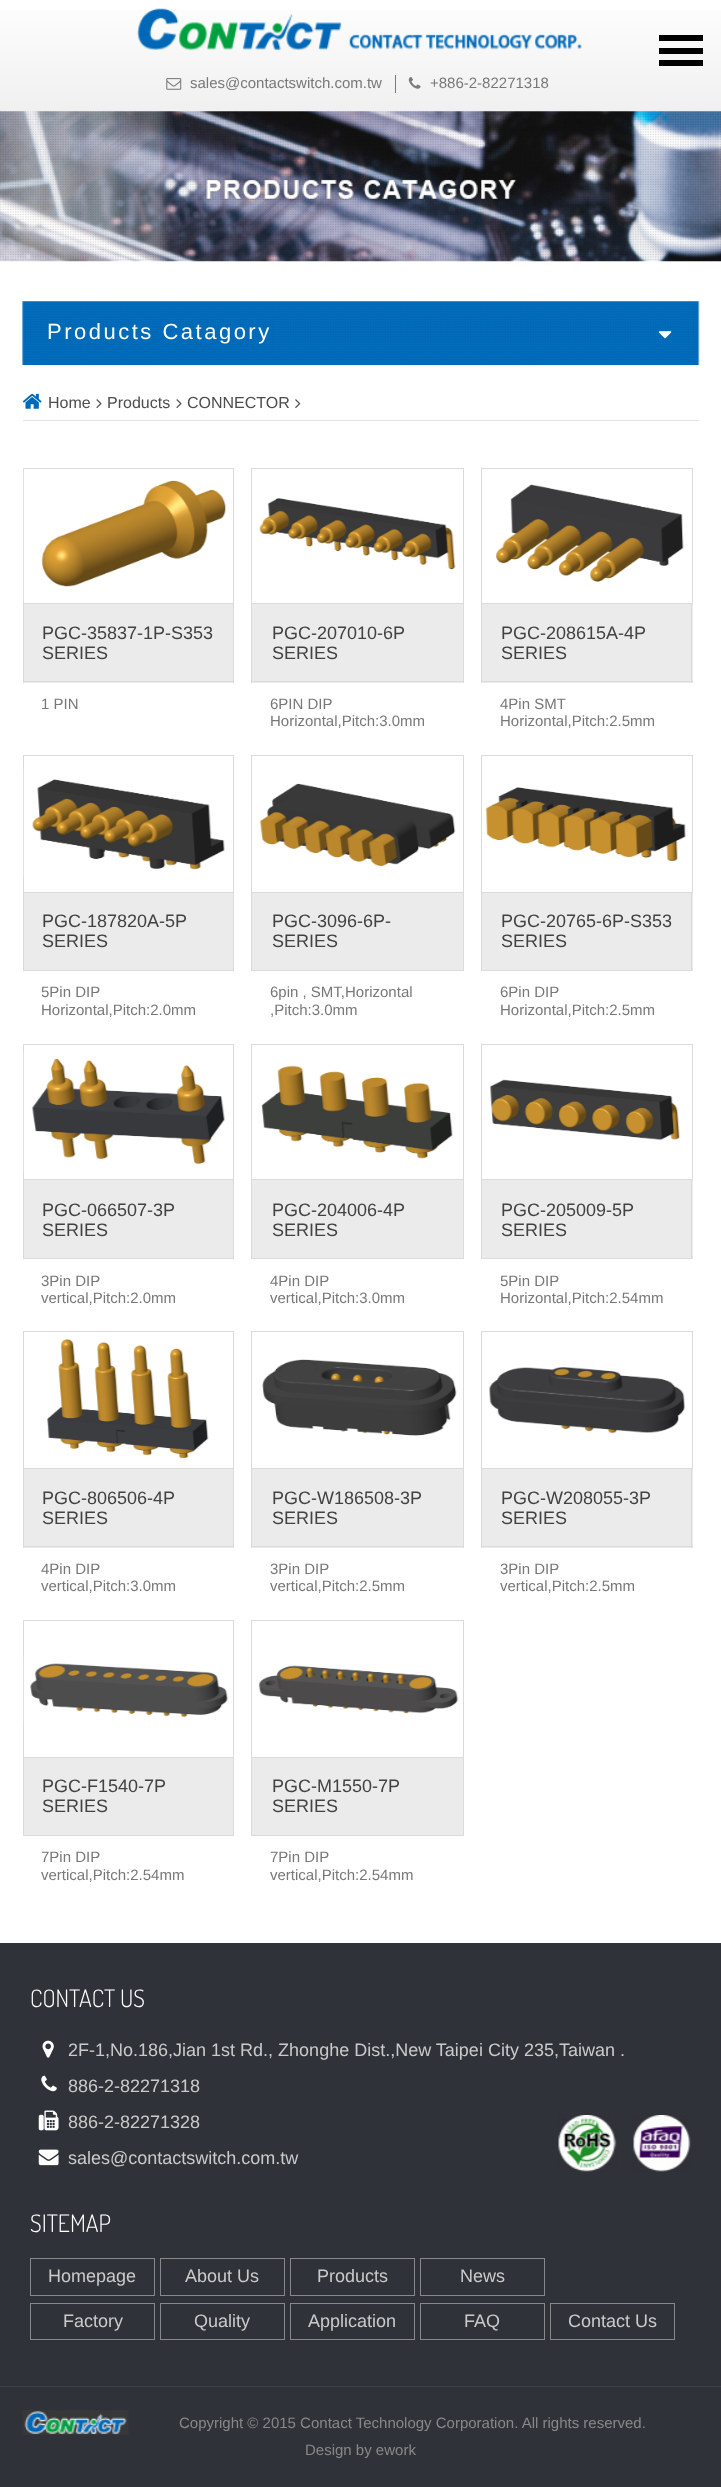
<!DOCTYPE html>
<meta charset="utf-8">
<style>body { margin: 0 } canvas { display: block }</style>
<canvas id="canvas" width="721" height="2487"></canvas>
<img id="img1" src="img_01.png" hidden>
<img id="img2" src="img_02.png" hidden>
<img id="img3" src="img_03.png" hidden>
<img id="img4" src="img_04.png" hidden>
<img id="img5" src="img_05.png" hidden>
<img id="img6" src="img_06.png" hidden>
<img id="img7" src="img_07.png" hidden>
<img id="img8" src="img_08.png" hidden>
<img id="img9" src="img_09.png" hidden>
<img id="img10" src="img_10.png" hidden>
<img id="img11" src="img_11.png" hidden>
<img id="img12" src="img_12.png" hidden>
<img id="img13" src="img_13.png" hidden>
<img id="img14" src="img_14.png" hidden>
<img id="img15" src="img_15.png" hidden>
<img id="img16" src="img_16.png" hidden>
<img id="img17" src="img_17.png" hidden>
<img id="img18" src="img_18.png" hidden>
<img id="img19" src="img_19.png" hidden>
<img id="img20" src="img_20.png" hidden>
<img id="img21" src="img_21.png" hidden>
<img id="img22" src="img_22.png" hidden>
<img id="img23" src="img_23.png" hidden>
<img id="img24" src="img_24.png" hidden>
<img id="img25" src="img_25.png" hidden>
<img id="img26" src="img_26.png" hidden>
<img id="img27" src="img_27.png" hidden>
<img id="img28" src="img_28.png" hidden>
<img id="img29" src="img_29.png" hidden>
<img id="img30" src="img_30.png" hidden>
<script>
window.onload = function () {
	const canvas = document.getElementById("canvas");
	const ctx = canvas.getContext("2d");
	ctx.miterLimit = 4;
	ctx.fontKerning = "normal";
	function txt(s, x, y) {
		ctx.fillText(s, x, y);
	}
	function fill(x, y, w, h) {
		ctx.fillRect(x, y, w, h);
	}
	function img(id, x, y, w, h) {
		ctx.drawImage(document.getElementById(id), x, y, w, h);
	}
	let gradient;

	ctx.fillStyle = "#FFFFFF";
	fill(0, 0, 721, 2487);
	gradient = ctx.createLinearGradient(361, -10, 361, 111);
	gradient.addColorStop(0, "#FFFFFF");
	gradient.addColorStop(1, "#F0F0F0");
	ctx.fillStyle = gradient;
	fill(0, 10, 721, 101);
	img("img1", 137, 8, 445, 42);
	ctx.fillStyle = "#000000";
	fill(659, 48, 44, 6);
	fill(659, 35, 44, 6);
	fill(659, 60, 44, 6);
	ctx.fillStyle = "#7B7B7B";
	fill(395, 75, 1, 18);
	img("img2", 166, 78, 16, 12);
	img("img3", 408, 77, 13, 12);
	img("img4", 0, 111, 721, 151);
	img("img5", 22, 301, 678, 64);
	img("img6", 658, 331, 14, 8);
	ctx.fillStyle = "#E4E4E4";
	fill(23, 420, 676, 1);
	img("img7", 22, 393, 20, 16);
	img("img8", 96, 399, 6, 9);
	img("img8", 176, 399, 6, 9);
	img("img9", 295, 399, 6, 9);
	ctx.strokeStyle = "#DBDBDB";
	ctx.strokeRect(23.5, 468.5, 210, 135);
	img("img10", 23, 469, 203, 133);
	ctx.fillStyle = "#EBEBEB";
	fill(24, 604, 209, 79);
	ctx.fillStyle = "#DBDBDB";
	fill(233, 604, 1, 79);
	fill(23, 681, 211, 1);
	fill(23, 604, 1, 79);
	ctx.strokeRect(251.5, 468.5, 212, 135);
	img("img11", 259, 498, 197, 72);
	ctx.fillStyle = "#EBEBEB";
	fill(252, 604, 211, 79);
	ctx.fillStyle = "#DBDBDB";
	fill(463, 604, 1, 79);
	fill(251, 681, 213, 1);
	fill(251, 604, 1, 79);
	ctx.strokeRect(481.5, 468.5, 211, 135);
	img("img12", 496, 484, 188, 98);
	ctx.fillStyle = "#EBEBEB";
	fill(482, 604, 211, 79);
	ctx.fillStyle = "#DBDBDB";
	fill(691, 604, 1, 79);
	fill(481, 681, 212, 1);
	fill(481, 604, 1, 79);
	ctx.strokeRect(23.5, 755.5, 210, 137);
	img("img13", 23, 769, 202, 108);
	ctx.fillStyle = "#EBEBEB";
	fill(24, 893, 209, 77);
	ctx.fillStyle = "#DBDBDB";
	fill(233, 893, 1, 78);
	fill(23, 970, 211, 1);
	fill(23, 893, 1, 78);
	ctx.strokeRect(251.5, 755.5, 212, 137);
	img("img14", 259, 783, 197, 84);
	ctx.fillStyle = "#EBEBEB";
	fill(252, 893, 211, 77);
	ctx.fillStyle = "#DBDBDB";
	fill(463, 893, 1, 78);
	fill(251, 970, 213, 1);
	fill(251, 893, 1, 78);
	ctx.strokeRect(481.5, 755.5, 211, 137);
	img("img15", 485, 787, 201, 74);
	ctx.fillStyle = "#EBEBEB";
	fill(482, 893, 211, 77);
	ctx.fillStyle = "#DBDBDB";
	fill(691, 893, 1, 78);
	fill(481, 970, 212, 1);
	fill(481, 893, 1, 78);
	ctx.strokeRect(23.5, 1044.5, 210, 135);
	img("img16", 23, 1053, 202, 118);
	ctx.fillStyle = "#EBEBEB";
	fill(24, 1180, 209, 78);
	ctx.fillStyle = "#DBDBDB";
	fill(233, 1180, 1, 79);
	fill(23, 1258, 211, 1);
	fill(23, 1180, 1, 79);
	ctx.strokeRect(251.5, 1044.5, 212, 135);
	img("img17", 261, 1065, 192, 94);
	ctx.fillStyle = "#EBEBEB";
	fill(252, 1180, 211, 78);
	ctx.fillStyle = "#DBDBDB";
	fill(463, 1180, 1, 79);
	fill(251, 1258, 213, 1);
	fill(251, 1180, 1, 79);
	ctx.strokeRect(481.5, 1044.5, 211, 135);
	img("img18", 489, 1079, 191, 62);
	ctx.fillStyle = "#EBEBEB";
	fill(482, 1180, 211, 78);
	ctx.fillStyle = "#DBDBDB";
	fill(691, 1180, 1, 79);
	fill(481, 1258, 212, 1);
	fill(481, 1180, 1, 79);
	ctx.strokeRect(23.5, 1331.5, 210, 137);
	img("img19", 47, 1339, 162, 120);
	ctx.fillStyle = "#EBEBEB";
	fill(24, 1469, 209, 79);
	ctx.fillStyle = "#DBDBDB";
	fill(233, 1469, 1, 79);
	fill(23, 1546, 211, 1);
	fill(23, 1469, 1, 79);
	ctx.strokeRect(251.5, 1331.5, 212, 137);
	img("img20", 262, 1359, 195, 77);
	ctx.fillStyle = "#EBEBEB";
	fill(252, 1469, 211, 79);
	ctx.fillStyle = "#DBDBDB";
	fill(463, 1469, 1, 79);
	fill(251, 1546, 213, 1);
	fill(251, 1469, 1, 79);
	ctx.strokeRect(481.5, 1331.5, 211, 137);
	img("img21", 489, 1367, 197, 67);
	ctx.fillStyle = "#EBEBEB";
	fill(482, 1469, 211, 79);
	ctx.fillStyle = "#DBDBDB";
	fill(691, 1469, 1, 79);
	fill(481, 1546, 212, 1);
	fill(481, 1469, 1, 79);
	ctx.strokeRect(23.5, 1620.5, 210, 137);
	img("img22", 23, 1656, 206, 65);
	ctx.fillStyle = "#EBEBEB";
	fill(24, 1758, 209, 77);
	ctx.fillStyle = "#DBDBDB";
	fill(233, 1758, 1, 78);
	fill(23, 1835, 211, 1);
	fill(23, 1758, 1, 78);
	ctx.strokeRect(251.5, 1620.5, 212, 137);
	img("img23", 258, 1665, 201, 49);
	ctx.fillStyle = "#EBEBEB";
	fill(252, 1758, 211, 77);
	ctx.fillStyle = "#DBDBDB";
	fill(463, 1758, 1, 78);
	fill(251, 1835, 213, 1);
	fill(251, 1758, 1, 78);
	ctx.fillStyle = "#303239";
	fill(0, 1943, 721, 544);
	img("img24", 42, 2040, 12, 18);
	img("img25", 41, 2075, 16, 17);
	img("img26", 38, 2110, 21, 21);
	img("img27", 558, 2115, 59, 57);
	img("img28", 633, 2115, 58, 57);
	img("img29", 38, 2149, 21, 17);
	ctx.strokeStyle = "#888888";
	ctx.strokeRect(30.5, 2258.5, 124, 37);
	ctx.strokeRect(160.5, 2258.5, 124, 37);
	ctx.strokeRect(290.5, 2258.5, 124, 37);
	ctx.strokeRect(420.5, 2258.5, 124, 37);
	ctx.strokeRect(30.5, 2303.5, 124, 36);
	ctx.strokeRect(160.5, 2303.5, 124, 36);
	ctx.strokeRect(290.5, 2303.5, 124, 36);
	ctx.strokeRect(420.5, 2303.5, 124, 36);
	ctx.strokeRect(550.5, 2303.5, 124, 36);
	ctx.fillStyle = "#3E4047";
	fill(0, 2386, 721, 1);
	img("img30", 22, 2410, 107, 25);
	ctx.font = "15px Liberation Sans";
	ctx.fillStyle = "#787878";
	txt("sales@contactswitch.com.tw", 190, 88);
	txt("+886-2-82271318", 430, 88);
	ctx.letterSpacing = "2.5px";
	ctx.font = "22px Liberation Sans";
	ctx.fillStyle = "#FFFFFF";
	txt("Products Catagory", 47, 339);
	ctx.letterSpacing = "0px";
	ctx.font = "16px Liberation Sans";
	ctx.fillStyle = "#4D4D4D";
	txt("Home", 48, 408);
	txt("Products", 107, 408);
	txt("CONNECTOR", 187, 408);
	ctx.font = "18px Liberation Sans";
	ctx.fillStyle = "#434242";
	txt("PGC-35837-1P-S353", 42, 639);
	txt("SERIES", 42, 659);
	ctx.font = "15px Liberation Sans";
	ctx.fillStyle = "#787878";
	txt("1 PIN", 41, 709);
	ctx.font = "18px Liberation Sans";
	ctx.fillStyle = "#434242";
	txt("PGC-207010-6P", 272, 639);
	txt("SERIES", 272, 659);
	ctx.font = "15px Liberation Sans";
	ctx.fillStyle = "#787878";
	txt("6PIN DIP", 270, 709);
	txt("Horizontal,Pitch:3.0mm", 270, 726);
	ctx.font = "18px Liberation Sans";
	ctx.fillStyle = "#434242";
	txt("PGC-208615A-4P", 501, 639);
	txt("SERIES", 501, 659);
	ctx.font = "15px Liberation Sans";
	ctx.fillStyle = "#787878";
	txt("4Pin SMT", 500, 709);
	txt("Horizontal,Pitch:2.5mm", 500, 726);
	ctx.font = "18px Liberation Sans";
	ctx.fillStyle = "#434242";
	txt("PGC-187820A-5P", 42, 927);
	txt("SERIES", 42, 947);
	ctx.font = "15px Liberation Sans";
	ctx.fillStyle = "#787878";
	txt("5Pin DIP", 41, 997);
	txt("Horizontal,Pitch:2.0mm", 41, 1015);
	ctx.font = "18px Liberation Sans";
	ctx.fillStyle = "#434242";
	txt("PGC-3096-6P-", 272, 927);
	txt("SERIES", 272, 947);
	ctx.font = "15px Liberation Sans";
	ctx.fillStyle = "#787878";
	txt("6pin , SMT,Horizontal", 270, 997);
	txt(",Pitch:3.0mm", 270, 1015);
	ctx.font = "18px Liberation Sans";
	ctx.fillStyle = "#434242";
	txt("PGC-20765-6P-S353", 501, 927);
	txt("SERIES", 501, 947);
	ctx.font = "15px Liberation Sans";
	ctx.fillStyle = "#787878";
	txt("6Pin DIP", 500, 997);
	txt("Horizontal,Pitch:2.5mm", 500, 1015);
	ctx.font = "18px Liberation Sans";
	ctx.fillStyle = "#434242";
	txt("PGC-066507-3P", 42, 1216);
	txt("SERIES", 42, 1236);
	ctx.font = "15px Liberation Sans";
	ctx.fillStyle = "#787878";
	txt("3Pin DIP", 41, 1286);
	txt("vertical,Pitch:2.0mm", 41, 1303);
	ctx.font = "18px Liberation Sans";
	ctx.fillStyle = "#434242";
	txt("PGC-204006-4P", 272, 1216);
	txt("SERIES", 272, 1236);
	ctx.font = "15px Liberation Sans";
	ctx.fillStyle = "#787878";
	txt("4Pin DIP", 270, 1286);
	txt("vertical,Pitch:3.0mm", 270, 1303);
	ctx.font = "18px Liberation Sans";
	ctx.fillStyle = "#434242";
	txt("PGC-205009-5P", 501, 1216);
	txt("SERIES", 501, 1236);
	ctx.font = "15px Liberation Sans";
	ctx.fillStyle = "#787878";
	txt("5Pin DIP", 500, 1286);
	txt("Horizontal,Pitch:2.54mm", 500, 1303);
	ctx.font = "18px Liberation Sans";
	ctx.fillStyle = "#434242";
	txt("PGC-806506-4P", 42, 1504);
	txt("SERIES", 42, 1524);
	ctx.font = "15px Liberation Sans";
	ctx.fillStyle = "#787878";
	txt("4Pin DIP", 41, 1574);
	txt("vertical,Pitch:3.0mm", 41, 1591);
	ctx.font = "18px Liberation Sans";
	ctx.fillStyle = "#434242";
	txt("PGC-W186508-3P", 272, 1504);
	txt("SERIES", 272, 1524);
	ctx.font = "15px Liberation Sans";
	ctx.fillStyle = "#787878";
	txt("3Pin DIP", 270, 1574);
	txt("vertical,Pitch:2.5mm", 270, 1591);
	ctx.font = "18px Liberation Sans";
	ctx.fillStyle = "#434242";
	txt("PGC-W208055-3P", 501, 1504);
	txt("SERIES", 501, 1524);
	ctx.font = "15px Liberation Sans";
	ctx.fillStyle = "#787878";
	txt("3Pin DIP", 500, 1574);
	txt("vertical,Pitch:2.5mm", 500, 1591);
	ctx.font = "18px Liberation Sans";
	ctx.fillStyle = "#434242";
	txt("PGC-F1540-7P", 42, 1792);
	txt("SERIES", 42, 1812);
	ctx.font = "15px Liberation Sans";
	ctx.fillStyle = "#787878";
	txt("7Pin DIP", 41, 1862);
	txt("vertical,Pitch:2.54mm", 41, 1880);
	ctx.font = "18px Liberation Sans";
	ctx.fillStyle = "#434242";
	txt("PGC-M1550-7P", 272, 1792);
	txt("SERIES", 272, 1812);
	ctx.font = "15px Liberation Sans";
	ctx.fillStyle = "#787878";
	txt("7Pin DIP", 270, 1862);
	txt("vertical,Pitch:2.54mm", 270, 1880);
	ctx.font = "300 24px Dosis";
	ctx.fillStyle = "#FFFFFF";
	txt("CONTACT US", 30, 2007);
	ctx.font = "18px Liberation Sans";
	ctx.fillStyle = "#CACACA";
	txt("2F-1,No.186,Jian 1st Rd., Zhonghe Dist.,New Taipei City 235,Taiwan .", 68, 2056);
	txt("886-2-82271318", 68, 2092);
	txt("886-2-82271328", 68, 2128);
	txt("sales@contactswitch.com.tw", 68, 2164);
	ctx.font = "300 24px Dosis";
	ctx.fillStyle = "#FFFFFF";
	txt("SITEMAP", 30, 2232);
	ctx.font = "18px Liberation Sans";
	ctx.fillStyle = "#CACACA";
	txt("Homepage", 48, 2282);
	txt("About Us", 185, 2282);
	txt("Products", 317, 2282);
	txt("News", 460, 2282);
	txt("Factory", 63, 2327);
	txt("Quality", 194, 2327);
	txt("Application", 308, 2327);
	txt("FAQ", 464, 2327);
	txt("Contact Us", 568, 2327);
	ctx.font = "15px Liberation Sans";
	ctx.fillStyle = "#888888";
	txt("Copyright © 2015 Contact Technology Corporation. All rights reserved.", 179, 2428);
	txt("Design by ework", 305, 2455);
};
</script>
